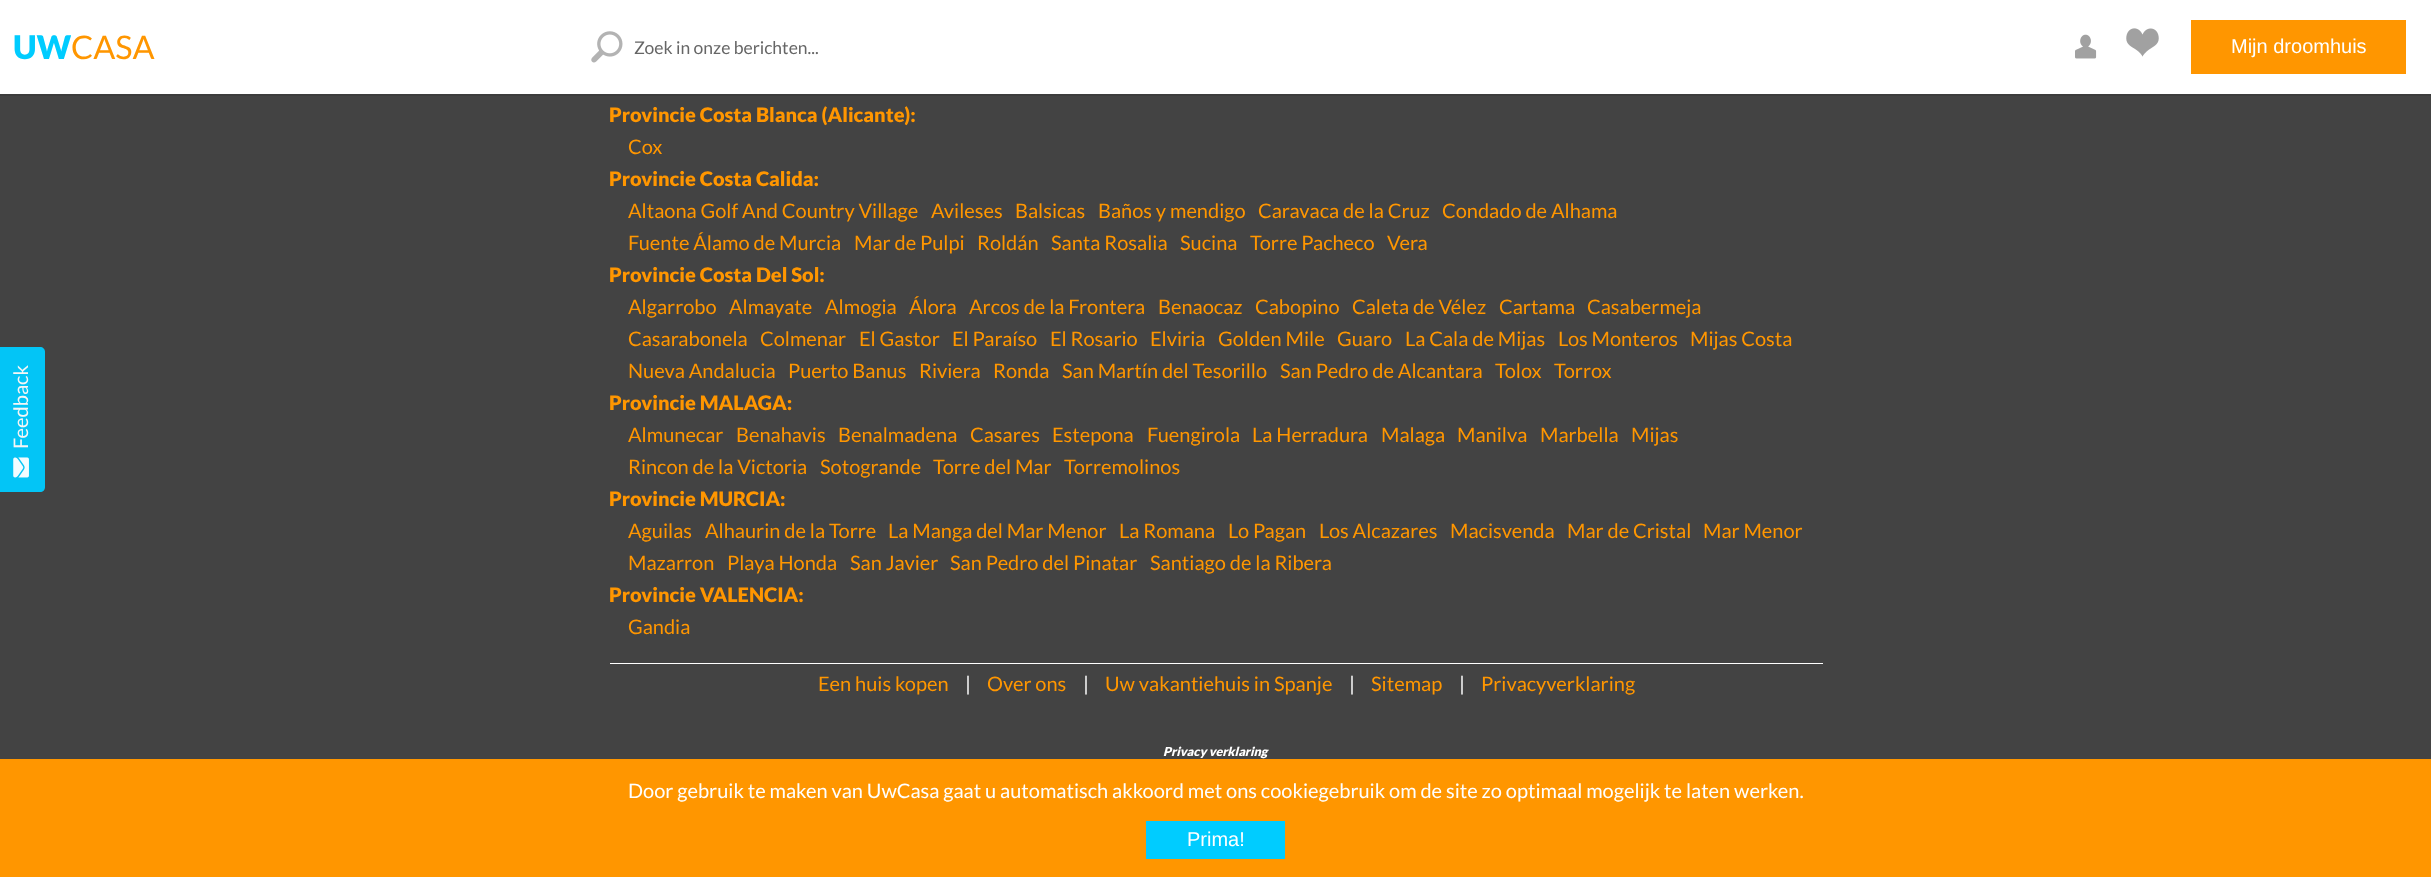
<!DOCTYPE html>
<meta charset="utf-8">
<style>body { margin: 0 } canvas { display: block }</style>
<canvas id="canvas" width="2431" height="877"></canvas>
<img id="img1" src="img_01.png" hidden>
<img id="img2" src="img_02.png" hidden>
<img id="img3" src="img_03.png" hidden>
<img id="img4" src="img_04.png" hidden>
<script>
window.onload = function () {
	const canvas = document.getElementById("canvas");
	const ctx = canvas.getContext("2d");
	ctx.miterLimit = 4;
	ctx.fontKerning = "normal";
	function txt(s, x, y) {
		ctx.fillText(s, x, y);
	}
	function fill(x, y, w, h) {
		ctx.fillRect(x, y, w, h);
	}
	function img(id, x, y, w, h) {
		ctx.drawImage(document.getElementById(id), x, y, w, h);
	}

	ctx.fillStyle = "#434343";
	fill(0, 0, 2431, 877);
	ctx.fillStyle = "#3C3C3C";
	fill(0, 94, 2431, 2);
	ctx.fillStyle = "#FFFFFF";
	fill(0, 0, 2431, 94);
	img("img1", 2075, 34, 22, 25);
	img("img2", 2126, 28, 33, 29);
	ctx.fillStyle = "#FF9600";
	fill(2191, 20, 215, 54);
	img("img3", 591, 31, 32, 32);
	ctx.fillStyle = "#03C5F6";
	ctx.beginPath();
	ctx.moveTo(-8, 487);
	ctx.lineTo(-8, 352);
	ctx.bezierCurveTo(-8, 349, -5, 347, -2, 347);
	ctx.lineTo(40, 347);
	ctx.bezierCurveTo(43, 347, 45, 349, 45, 352);
	ctx.lineTo(45, 487);
	ctx.bezierCurveTo(45, 490, 43, 492, 40, 492);
	ctx.lineTo(-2, 492);
	ctx.bezierCurveTo(-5, 492, -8, 490, -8, 487);
	ctx.closePath();
	ctx.fill();
	img("img4", 13, 457, 16, 21);
	ctx.fillStyle = "#FFFFFF";
	fill(610, 663, 1213, 1);
	ctx.fillStyle = "#FF9600";
	fill(0, 759, 2431, 118);
	ctx.fillStyle = "#00CCFF";
	fill(1146, 821, 139, 38);
	ctx.font = "900 32.5px Lato";
	txt("UW", 13, 59);
	ctx.font = "32.5px Lato";
	ctx.fillStyle = "#FF9600";
	txt("CASA", 71, 59);
	ctx.font = "20px Liberation Sans";
	ctx.fillStyle = "#FFFFFF";
	txt("Mijn droomhuis", 2231, 53);
	ctx.font = "17.5px Lato";
	ctx.fillStyle = "#666666";
	txt("Zoek in onze berichten...", 634, 54);
	ctx.font = "20px Lato";
	ctx.fillStyle = "#F6F6F6";
	ctx.save();
	ctx.translate(28, 449);
	ctx.rotate(-90 * Math.PI / 180);
	ctx.fillText("Feedback", 0, 0);
	ctx.restore();
	ctx.font = "900 20px Lato";
	ctx.fillStyle = "#FF9600";
	txt("Provincie Costa Blanca (Alicante):", 609, 122);
	ctx.font = "20px Lato";
	txt("Cox", 628, 154);
	ctx.font = "900 20px Lato";
	txt("Provincie Costa Calida:", 609, 186);
	ctx.font = "20px Lato";
	txt("Altaona Golf And Country Village", 628, 218);
	txt("Avileses", 931, 218);
	txt("Balsicas", 1015, 218);
	txt("Baños y mendigo", 1098, 218);
	txt("Caravaca de la Cruz", 1258, 218);
	txt("Condado de Alhama", 1442, 218);
	txt("Fuente Álamo de Murcia", 628, 250);
	txt("Mar de Pulpi", 854, 250);
	txt("Roldán", 977, 250);
	txt("Santa Rosalia", 1051, 250);
	txt("Sucina", 1180, 250);
	txt("Torre Pacheco", 1250, 250);
	txt("Vera", 1387, 250);
	ctx.font = "900 20px Lato";
	txt("Provincie Costa Del Sol:", 609, 282);
	ctx.font = "20px Lato";
	txt("Algarrobo", 628, 314);
	txt("Almayate", 729, 314);
	txt("Almogia", 825, 314);
	txt("Álora", 909, 314);
	txt("Arcos de la Frontera", 969, 314);
	txt("Benaocaz", 1158, 314);
	txt("Cabopino", 1255, 314);
	txt("Caleta de Vélez", 1352, 314);
	txt("Cartama", 1499, 314);
	txt("Casabermeja", 1587, 314);
	txt("Casarabonela", 628, 346);
	txt("Colmenar", 760, 346);
	txt("El Gastor", 859, 346);
	txt("El Paraíso", 952, 346);
	txt("El Rosario", 1050, 346);
	txt("Elviria", 1150, 346);
	txt("Golden Mile", 1218, 346);
	txt("Guaro", 1337, 346);
	txt("La Cala de Mijas", 1405, 346);
	txt("Los Monteros", 1558, 346);
	txt("Mijas Costa", 1690, 346);
	txt("Nueva Andalucia", 628, 378);
	txt("Puerto Banus", 788, 378);
	txt("Riviera", 919, 378);
	txt("Ronda", 993, 378);
	txt("San Martín del Tesorillo", 1062, 378);
	txt("San Pedro de Alcantara", 1280, 378);
	txt("Tolox", 1495, 378);
	txt("Torrox", 1554, 378);
	ctx.font = "900 20px Lato";
	txt("Provincie MALAGA:", 609, 410);
	ctx.font = "20px Lato";
	txt("Almunecar", 628, 442);
	txt("Benahavis", 736, 442);
	txt("Benalmadena", 838, 442);
	txt("Casares", 970, 442);
	txt("Estepona", 1052, 442);
	txt("Fuengirola", 1147, 442);
	txt("La Herradura", 1252, 442);
	txt("Malaga", 1381, 442);
	txt("Manilva", 1457, 442);
	txt("Marbella", 1540, 442);
	txt("Mijas", 1631, 442);
	txt("Rincon de la Victoria", 628, 474);
	txt("Sotogrande", 820, 474);
	txt("Torre del Mar", 933, 474);
	txt("Torremolinos", 1064, 474);
	ctx.font = "900 20px Lato";
	txt("Provincie MURCIA:", 609, 506);
	ctx.font = "20px Lato";
	txt("Aguilas", 628, 538);
	txt("Alhaurin de la Torre", 705, 538);
	txt("La Manga del Mar Menor", 888, 538);
	txt("La Romana", 1119, 538);
	txt("Lo Pagan", 1228, 538);
	txt("Los Alcazares", 1319, 538);
	txt("Macisvenda", 1450, 538);
	txt("Mar de Cristal", 1567, 538);
	txt("Mar Menor", 1703, 538);
	txt("Mazarron", 628, 570);
	txt("Playa Honda", 727, 570);
	txt("San Javier", 850, 570);
	txt("San Pedro del Pinatar", 950, 570);
	txt("Santiago de la Ribera", 1150, 570);
	ctx.font = "900 20px Lato";
	txt("Provincie VALENCIA:", 609, 602);
	ctx.font = "20px Lato";
	txt("Gandia", 628, 634);
	txt("Een huis kopen", 818, 691);
	ctx.fillStyle = "#FFFFFF";
	txt("|", 965, 691);
	ctx.fillStyle = "#FF9600";
	txt("Over ons", 987, 691);
	ctx.fillStyle = "#FFFFFF";
	txt("|", 1083, 691);
	ctx.fillStyle = "#FF9600";
	txt("Uw vakantiehuis in Spanje", 1105, 691);
	ctx.fillStyle = "#FFFFFF";
	txt("|", 1349, 691);
	ctx.fillStyle = "#FF9600";
	txt("Sitemap", 1371, 691);
	ctx.fillStyle = "#FFFFFF";
	txt("|", 1459, 691);
	ctx.fillStyle = "#FF9600";
	txt("Privacyverklaring", 1481, 691);
	ctx.font = "italic 900 12.5px Lato";
	ctx.fillStyle = "#FFFFFF";
	txt("Privacy verklaring", 1163, 756);
	ctx.font = "20px Lato";
	txt("Door gebruik te maken van UwCasa gaat u automatisch akkoord met ons cookiegebruik om de site zo optimaal mogelijk te laten werken.", 628, 798);
	ctx.font = "20px Liberation Sans";
	txt("Prima!", 1187, 846);
};
</script>
